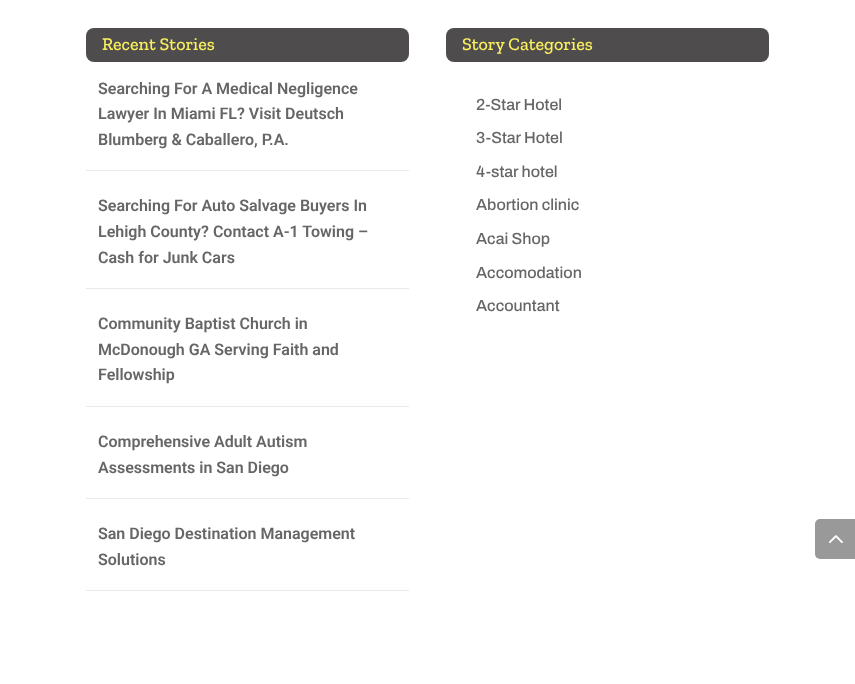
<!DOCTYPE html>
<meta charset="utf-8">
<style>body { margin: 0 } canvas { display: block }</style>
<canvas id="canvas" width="855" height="684"></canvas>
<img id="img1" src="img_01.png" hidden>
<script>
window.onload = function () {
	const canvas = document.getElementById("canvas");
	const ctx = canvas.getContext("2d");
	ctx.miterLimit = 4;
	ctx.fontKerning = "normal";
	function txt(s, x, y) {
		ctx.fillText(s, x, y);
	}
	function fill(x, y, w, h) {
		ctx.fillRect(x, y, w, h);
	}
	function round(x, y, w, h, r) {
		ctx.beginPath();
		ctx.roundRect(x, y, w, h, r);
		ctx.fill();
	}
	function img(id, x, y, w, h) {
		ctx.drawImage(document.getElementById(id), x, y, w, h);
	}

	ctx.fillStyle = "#FFFFFF";
	fill(0, 0, 855, 684);
	ctx.fillStyle = "#4F4C4D";
	round(86, 28, 323, 34, 8);
	ctx.fillStyle = "#E9E9E9";
	fill(86, 170, 323, 1);
	fill(86, 288, 323, 1);
	fill(86, 406, 323, 1);
	fill(86, 498, 323, 1);
	fill(86, 590, 323, 1);
	ctx.fillStyle = "#4F4C4D";
	round(446, 28, 323, 34, 8);
	ctx.fillStyle = "#999999";
	ctx.beginPath();
	ctx.roundRect(815, 519, 40, 40, [5, 0, 0, 5]);
	ctx.fill();
	img("img1", 829, 535, 14, 8);
	ctx.font = "500 18px Zilla Slab";
	ctx.fillStyle = "#FAEF5F";
	txt("Recent Stories", 102, 50);
	ctx.font = "600 16px Roboto";
	ctx.fillStyle = "#666666";
	txt("Searching For A Medical Negligence", 98, 94);
	txt("Lawyer In Miami FL? Visit Deutsch", 98, 119);
	txt("Blumberg & Caballero, P.A.", 98, 145);
	txt("Searching For Auto Salvage Buyers In", 98, 211);
	txt("Lehigh County? Contact A-1 Towing –", 98, 237);
	txt("Cash for Junk Cars", 98, 263);
	txt("Community Baptist Church in", 98, 329);
	txt("McDonough GA Serving Faith and", 98, 355);
	txt("Fellowship", 98, 380);
	txt("Comprehensive Adult Autism", 98, 447);
	txt("Assessments in San Diego", 98, 473);
	txt("San Diego Destination Management", 98, 539);
	txt("Solutions", 98, 565);
	ctx.font = "500 18px Zilla Slab";
	ctx.fillStyle = "#FAEF5F";
	txt("Story Categories", 462, 50);
	ctx.font = "500 16px Archivo";
	ctx.fillStyle = "#666666";
	txt("2-Star Hotel", 476, 110);
	txt("3-Star Hotel", 476, 143);
	txt("4-star hotel", 476, 177);
	txt("Abortion clinic", 476, 210);
	txt("Acai Shop", 476, 244);
	txt("Accomodation", 476, 278);
	txt("Accountant", 476, 311);
};
</script>
